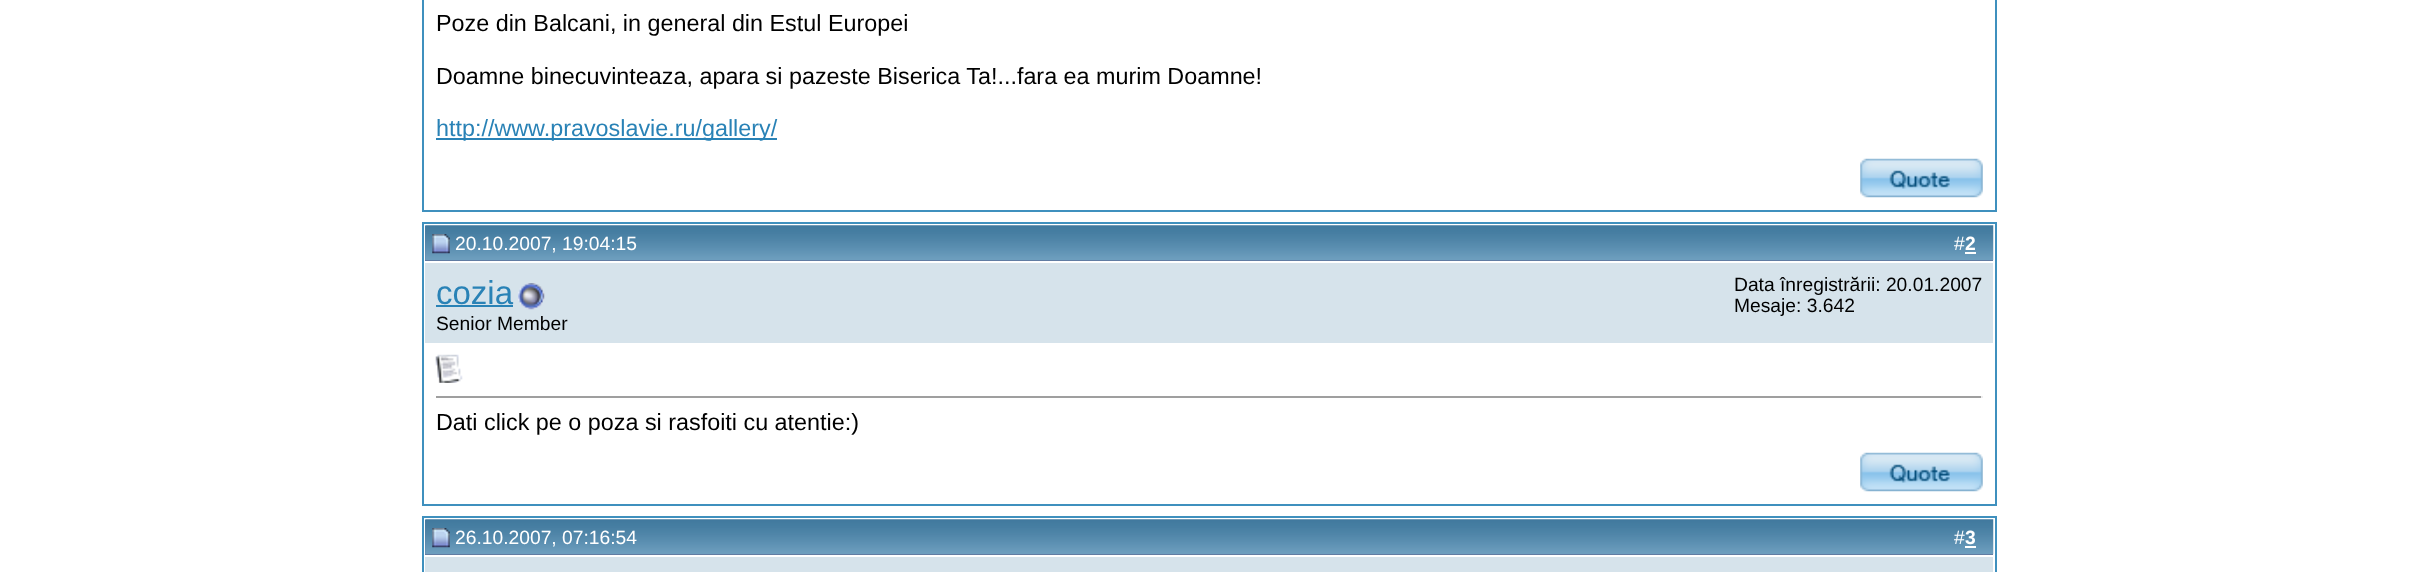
<!DOCTYPE html>
<meta charset="utf-8">
<style>body { margin: 0 } canvas { display: block }</style>
<canvas id="canvas" width="2417" height="572"></canvas>
<img id="img1" src="img_01.png" hidden>
<img id="img2" src="img_02.png" hidden>
<img id="img3" src="img_03.png" hidden>
<img id="img4" src="img_04.png" hidden>
<img id="img5" src="img_05.png" hidden>
<img id="img6" src="img_06.png" hidden>
<script>
window.onload = function () {
	const canvas = document.getElementById("canvas");
	const ctx = canvas.getContext("2d");
	ctx.miterLimit = 4;
	ctx.fontKerning = "normal";
	function txt(s, x, y) {
		ctx.fillText(s, x, y);
	}
	function fill(x, y, w, h) {
		ctx.fillRect(x, y, w, h);
	}
	function img(id, x, y, w, h) {
		ctx.drawImage(document.getElementById(id), x, y, w, h);
	}

	ctx.fillStyle = "#FFFFFF";
	fill(0, 0, 2417, 572);
	ctx.strokeStyle = "#3F90BE";
	ctx.lineWidth = 2;
	ctx.strokeRect(423, -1, 1573, 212);
	ctx.fillStyle = "#2982B6";
	fill(436, 138, 341, 2);
	img("img1", 1860, 158, 123, 40);
	ctx.strokeRect(423, 223, 1573, 282);
	ctx.fillStyle = "#5C7099";
	fill(425, 226, 1568, 35);
	img("img2", 425, 225, 1569, 36);
	img("img3", 432, 234, 18, 20);
	ctx.fillStyle = "#FFFFFF";
	fill(1965, 252, 11, 2);
	ctx.fillStyle = "#D6E3EB";
	fill(425, 263, 1568, 80);
	ctx.fillStyle = "#2982B6";
	fill(436, 305, 77, 2);
	img("img4", 518, 283, 27, 27);
	img("img5", 435, 354, 28, 29);
	ctx.fillStyle = "#9F9F9F";
	fill(436, 396, 1547, 2);
	ctx.fillStyle = "#EEEEEE";
	fill(1981, 396, 2, 2);
	img("img1", 1860, 452, 123, 40);
	ctx.strokeRect(423, 517, 1573, 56);
	ctx.fillStyle = "#5C7099";
	fill(425, 520, 1568, 35);
	img("img6", 425, 519, 1569, 36);
	img("img3", 432, 528, 18, 20);
	ctx.fillStyle = "#FFFFFF";
	fill(1965, 546, 11, 2);
	ctx.fillStyle = "#D6E3EB";
	fill(425, 557, 1568, 15);
	ctx.font = "23.35px Liberation Sans";
	ctx.fillStyle = "#000000";
	txt("Poze din Balcani, in general din Estul Europei", 436, 31);
	txt("Doamne binecuvinteaza, apara si pazeste Biserica Ta!...fara ea murim Doamne!", 436, 84);
	ctx.fillStyle = "#2982B6";
	txt("http://www.pravoslavie.ru/gallery/", 436, 136);
	ctx.font = "19.25px Liberation Sans";
	ctx.fillStyle = "#FFFFFF";
	txt("20.10.2007, 19:04:15", 455, 250);
	txt("#", 1954, 250);
	ctx.font = "bold 19.25px Liberation Sans";
	txt("2", 1965, 250);
	ctx.font = "33px Liberation Sans";
	ctx.fillStyle = "#2982B6";
	txt("cozia", 436, 304);
	ctx.font = "19.25px Liberation Sans";
	ctx.fillStyle = "#000000";
	txt("Senior Member", 436, 330);
	txt("Data înregistrării: 20.01.2007", 1734, 291);
	txt("Mesaje: 3.642", 1734, 312);
	ctx.font = "23.35px Liberation Sans";
	txt("Dati click pe o poza si rasfoiti cu atentie:)", 436, 430);
	ctx.font = "19.25px Liberation Sans";
	ctx.fillStyle = "#FFFFFF";
	txt("26.10.2007, 07:16:54", 455, 544);
	txt("#", 1954, 544);
	ctx.font = "bold 19.25px Liberation Sans";
	txt("3", 1965, 544);
};
</script>
